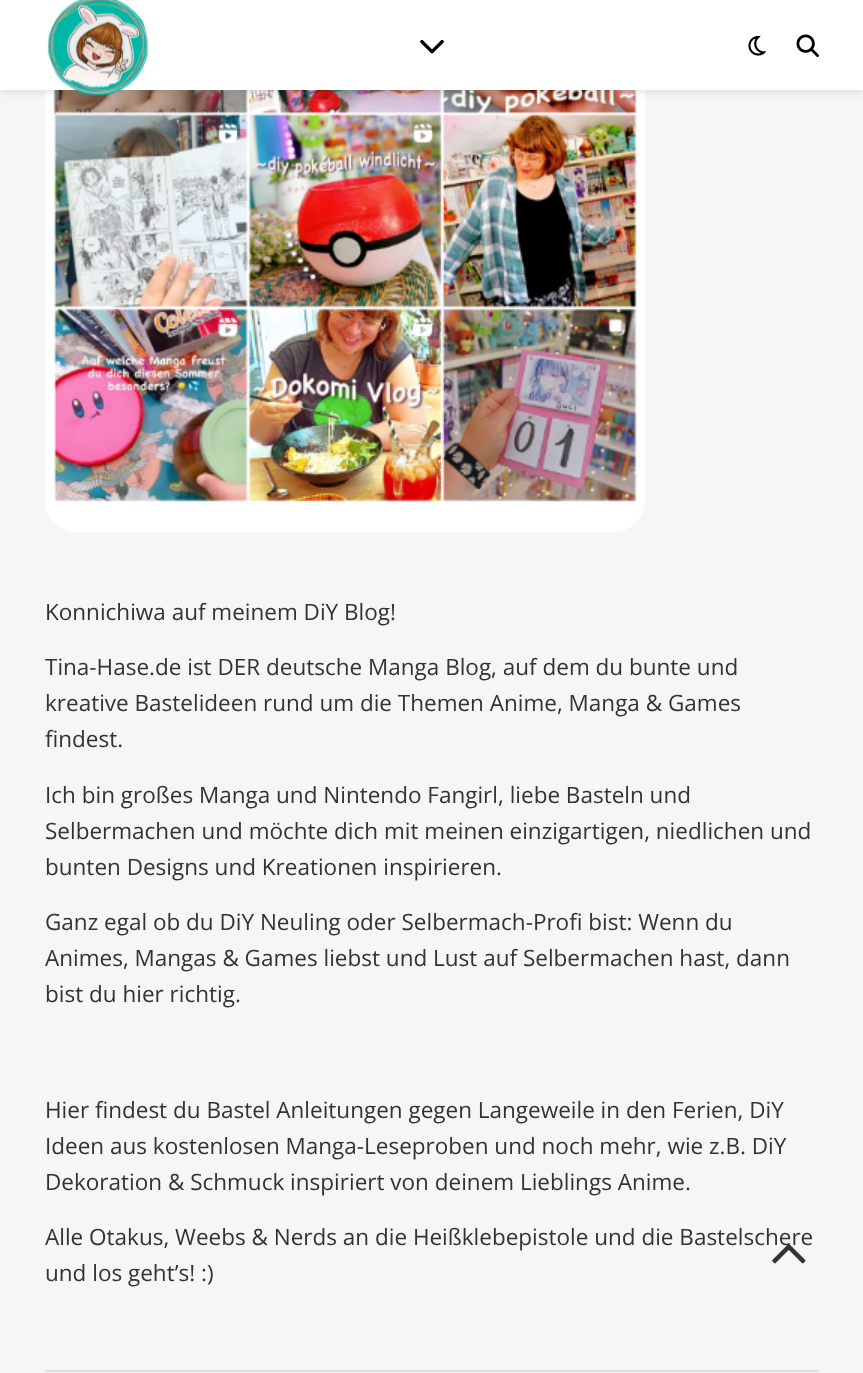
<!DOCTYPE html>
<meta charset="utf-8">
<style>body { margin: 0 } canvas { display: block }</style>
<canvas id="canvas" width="863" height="1373"></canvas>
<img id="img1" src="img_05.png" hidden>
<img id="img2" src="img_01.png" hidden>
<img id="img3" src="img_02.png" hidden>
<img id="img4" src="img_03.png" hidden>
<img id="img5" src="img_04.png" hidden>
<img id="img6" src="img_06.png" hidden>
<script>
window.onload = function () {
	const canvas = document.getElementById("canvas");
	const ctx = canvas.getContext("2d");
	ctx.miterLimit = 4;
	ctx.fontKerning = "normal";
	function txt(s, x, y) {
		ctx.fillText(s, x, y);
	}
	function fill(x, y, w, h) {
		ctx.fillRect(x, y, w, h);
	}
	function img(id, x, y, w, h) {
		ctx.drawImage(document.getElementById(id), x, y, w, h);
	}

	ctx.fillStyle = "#F6F6F6";
	fill(0, 0, 863, 1373);
	img("img1", 45, 90, 600, 442);
	ctx.fillStyle = "rgba(0, 0, 0, 0.1)";
	ctx.filter = "blur(4px)";
	ctx.beginPath();
	ctx.rect(0, 2, 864, 90);
	ctx.fill();
	ctx.filter = "none";
	ctx.fillStyle = "#FFFFFF";
	fill(0, 0, 863, 90);
	img("img2", 47, 0, 102, 96);
	img("img3", 420, 40, 24, 14);
	img("img4", 748, 35, 18, 21);
	img("img5", 796, 34, 23, 23);
	ctx.fillStyle = "#E0DBDB";
	fill(45, 1370, 774, 2);
	ctx.font = "22.5px Open Sans";
	ctx.fillStyle = "#333333";
	txt("Konnichiwa auf meinem DiY Blog!", 45, 620);
	txt("Tina-Hase.de ist DER deutsche Manga Blog, auf dem du bunte und", 45, 675);
	txt("kreative Bastelideen rund um die Themen Anime, Manga & Games", 45, 711);
	txt("findest.", 45, 747);
	txt("Ich bin großes Manga und Nintendo Fangirl, liebe Basteln und", 45, 803);
	txt("Selbermachen und möchte dich mit meinen einzigartigen, niedlichen und", 45, 839);
	txt("bunten Designs und Kreationen inspirieren.", 45, 875);
	txt("Ganz egal ob du DiY Neuling oder Selbermach-Profi bist: Wenn du", 45, 930);
	txt("Animes, Mangas & Games liebst und Lust auf Selbermachen hast, dann", 45, 966);
	txt("bist du hier richtig.", 45, 1002);
	txt("Hier findest du Bastel Anleitungen gegen Langeweile in den Ferien, DiY", 45, 1118);
	txt("Ideen aus kostenlosen Manga-Leseproben und noch mehr, wie z.B. DiY", 45, 1154);
	txt("Dekoration & Schmuck inspiriert von deinem Lieblings Anime.", 45, 1190);
	txt("Alle Otakus, Weebs & Nerds an die Heißklebepistole und die Bastelschere", 45, 1245);
	txt("und los geht’s! :)", 45, 1281);
	img("img6", 772, 1244, 34, 20);
};
</script>
